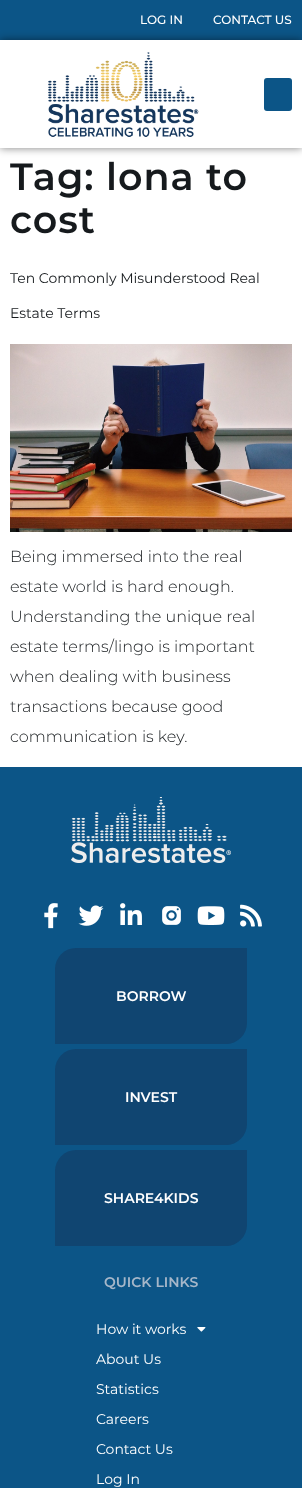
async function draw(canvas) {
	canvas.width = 302;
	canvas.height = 1488;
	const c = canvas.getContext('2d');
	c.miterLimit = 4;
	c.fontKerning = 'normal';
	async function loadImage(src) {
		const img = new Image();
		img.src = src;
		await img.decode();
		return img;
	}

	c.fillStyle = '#fff';
	c.fillRect(0, 0, 302, 1488);
	c.fillStyle = '#0c5587';
	c.fillRect(0, 0, 302, 40);
	c.font = '500 12px Montserrat';
	c.fillStyle = '#fff';
	c.fillText('LOG IN', 140, 24);
	c.fillText('CONTACT US', 213, 24);
	c.save();
	c.beginPath();
	c.moveTo(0, 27);
	c.lineTo(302, 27);
	c.lineTo(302, 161);
	c.lineTo(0, 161);
	c.closePath();
	c.moveTo(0, 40);
	c.lineTo(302, 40);
	c.lineTo(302, 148);
	c.lineTo(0, 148);
	c.closePath();
	c.clip('evenodd');
	c.fillStyle = '#00000080';
	c.filter = 'blur(4px)';
	c.beginPath();
	c.rect(0, 40, 302, 108);
	c.fill();
	c.filter = 'none';
	c.restore();
	c.drawImage(await loadImage('img1.png'), 48, 52, 151, 85);
	c.fillStyle = '#0c5587';
	c.beginPath();
	c.roundRect(264, 78, 28, 33, 3);
	c.fill();
	c.letterSpacing = '1px';
	c.font = '600 38px Montserrat';
	c.fillStyle = '#161a1d';
	c.fillText('Tag: lona to', 10, 190);
	c.fillText('cost', 10, 233);
	c.letterSpacing = '0px';
	c.font = '14px Montserrat';
	c.fillText('Ten Commonly Misunderstood Real', 10, 283);
	c.fillText('Estate Terms', 10, 318);
	c.drawImage(await loadImage('img2.png'), 10, 344, 282, 188);
	c.font = '300 16px Montserrat';
	for (const [text, x, y] of [
		['Being immersed into the real', 10, 562],
		['estate world is hard enough.', 10, 592],
		['Understanding the unique real', 10, 622],
		['estate terms/lingo is important', 10, 652],
		['when dealing with business', 10, 682],
		['transactions because good', 10, 712],
		['communication is key.', 10, 742],
	]) {
		c.fillText(text, x, y);
	}
	c.fillStyle = '#0c5587';
	c.fillRect(0, 767, 302, 721);
	c.drawImage(await loadImage('img3.png'), 71, 797, 160, 66);
	c.drawImage(await loadImage('img4.png'), 44, 903, 14, 26);
	c.drawImage(await loadImage('img5.png'), 78, 905, 26, 21);
	c.drawImage(await loadImage('img6.png'), 120, 903, 22, 22);
	c.drawImage(await loadImage('img7.png'), 162, 906, 19, 19);
	c.drawImage(await loadImage('img8.png'), 197, 906, 28, 19);
	c.drawImage(await loadImage('img9.png'), 240, 904, 22, 23);
	c.fillStyle = '#104571';
	c.beginPath();
	c.roundRect(55, 948, 192, 96, [21, 0, 21, 0]);
	c.fill();
	c.font = '600 14px Montserrat';
	c.fillStyle = '#fff';
	c.fillText('BORROW', 116, 1001);
	c.fillStyle = '#104571';
	c.beginPath();
	c.roundRect(55, 1049, 192, 96, [21, 0, 21, 0]);
	c.fill();
	c.fillStyle = '#fff';
	c.fillText('INVEST', 125, 1102);
	c.fillStyle = '#104571';
	c.beginPath();
	c.roundRect(55, 1150, 192, 96, [21, 0, 21, 0]);
	c.fill();
	c.fillStyle = '#fff';
	c.fillText('SHARE4KIDS', 104, 1203);
	c.fillStyle = '#a6b7c9';
	c.fillText('QUICK LINKS', 104, 1287);
	c.font = '14px Montserrat';
	c.fillStyle = '#fff';
	c.fillText('How it works', 96, 1334);
	c.drawImage(await loadImage('img10.png'), 197, 1327, 9, 5);
	for (const [text, x, y] of [
		['About Us', 96, 1364],
		['Statistics', 96, 1394],
		['Careers', 96, 1424],
		['Contact Us', 96, 1454],
		['Log In', 96, 1484],
	]) {
		c.fillText(text, x, y);
	}
}

draw(document.querySelector('canvas'));
